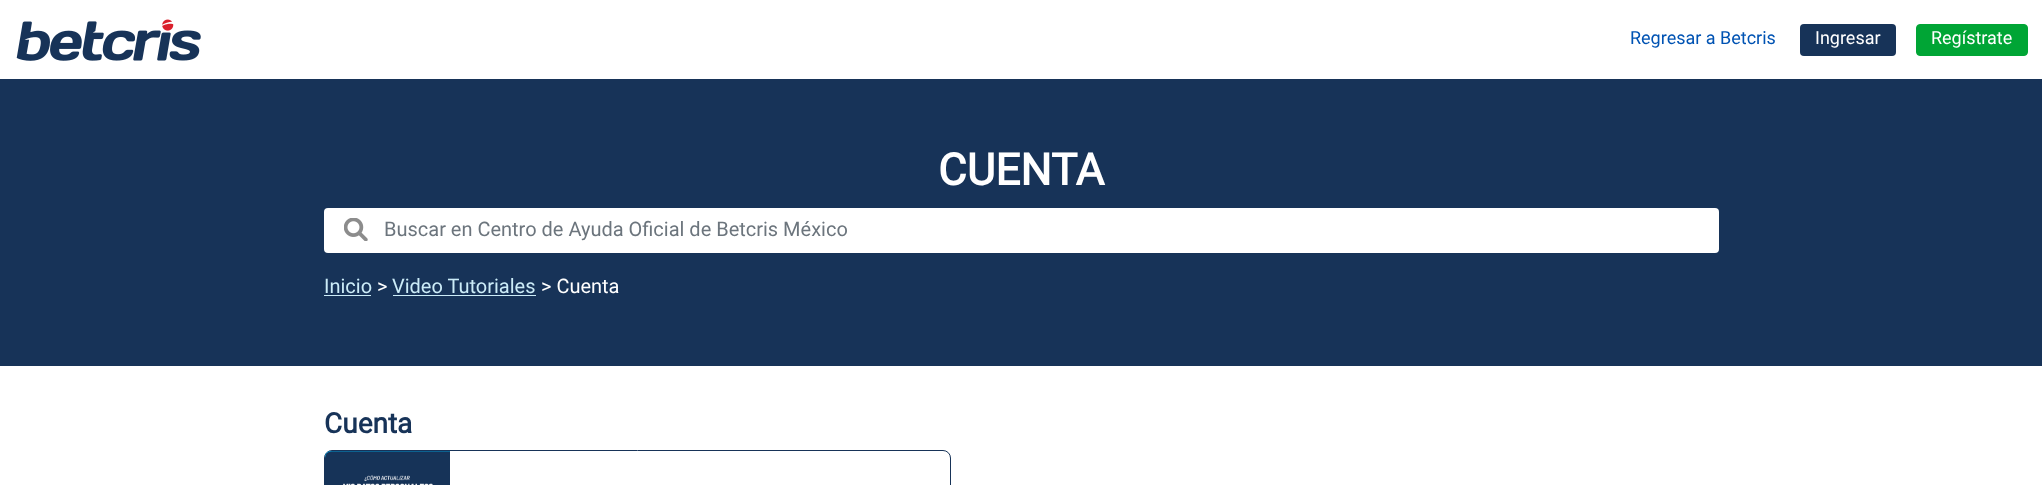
async function draw(canvas) {
	canvas.width = 2042;
	canvas.height = 485;
	const c = canvas.getContext('2d');
	c.miterLimit = 4;
	c.fontKerning = 'normal';
	async function loadImage(src) {
		const img = new Image();
		img.src = src;
		await img.decode();
		return img;
	}

	c.fillStyle = '#fff';
	c.fillRect(0, 0, 2042, 485);
	c.drawImage(await loadImage('img1.png'), 16, 19, 185, 42);
	c.font = '18px Roboto';
	c.fillStyle = '#0053b3';
	c.fillText('Regresar a Betcris', 1630, 44);
	c.fillStyle = '#173358';
	c.beginPath();
	c.roundRect(1800, 24, 96, 32, 4);
	c.fill();
	c.fillStyle = '#fff';
	c.fillText('Ingresar', 1815, 44);
	c.fillStyle = '#00a535';
	c.beginPath();
	c.roundRect(1916.5, 24.5, 111, 31, 3.5);
	c.fill();
	c.strokeStyle = '#00a535';
	c.stroke();
	c.fillStyle = '#fff';
	c.fillText('Regístrate', 1931, 44);
	c.fillStyle = '#173358';
	c.fillRect(0, 79, 2042, 287);
	c.font = 'bold 44px Roboto';
	c.fillStyle = '#fff';
	c.fillText('CUENTA', 938, 185);
	c.beginPath();
	c.roundRect(324, 208, 1395, 45, 4);
	c.fill();
	c.drawImage(await loadImage('img2.png'), 344, 218, 24, 23);
	c.font = '20px Roboto';
	c.fillStyle = '#6c757d';
	c.fillText('Buscar en Centro de Ayuda Oficial de Betcris México', 384, 236);
	c.fillStyle = '#ccecf8';
	c.fillText('Inicio', 324, 293);
	c.fillRect(324, 295, 47, 1);
	c.fillStyle = '#fff';
	c.fillText('>', 377, 293);
	c.fillStyle = '#ccecf8';
	c.fillText('Video Tutoriales', 392, 293);
	c.fillRect(393, 295, 143, 1);
	c.fillStyle = '#fff';
	c.fillText('> Cuenta', 541, 293);
	c.font = 'bold 28px Roboto';
	c.fillStyle = '#173358';
	c.fillText('Cuenta', 324, 433);
	c.beginPath();
	c.roundRect(324.5, 450.5, 626, 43, 7.5);
	c.strokeStyle = '#173358';
	c.stroke();
	c.fillStyle = '#009fda';
	c.beginPath();
	c.moveTo(331, 451);
	c.lineTo(450, 451);
	c.lineTo(450, 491);
	c.lineTo(331, 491);
	c.bezierCurveTo(327.5, 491, 325, 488.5, 325, 485);
	c.lineTo(325, 457);
	c.bezierCurveTo(325, 453.5, 327.5, 451, 331, 451);
	c.closePath();
	c.fill();
	c.drawImage(await loadImage('img3.png'), 325, 451, 125, 34);
}

draw(document.querySelector('canvas'));
